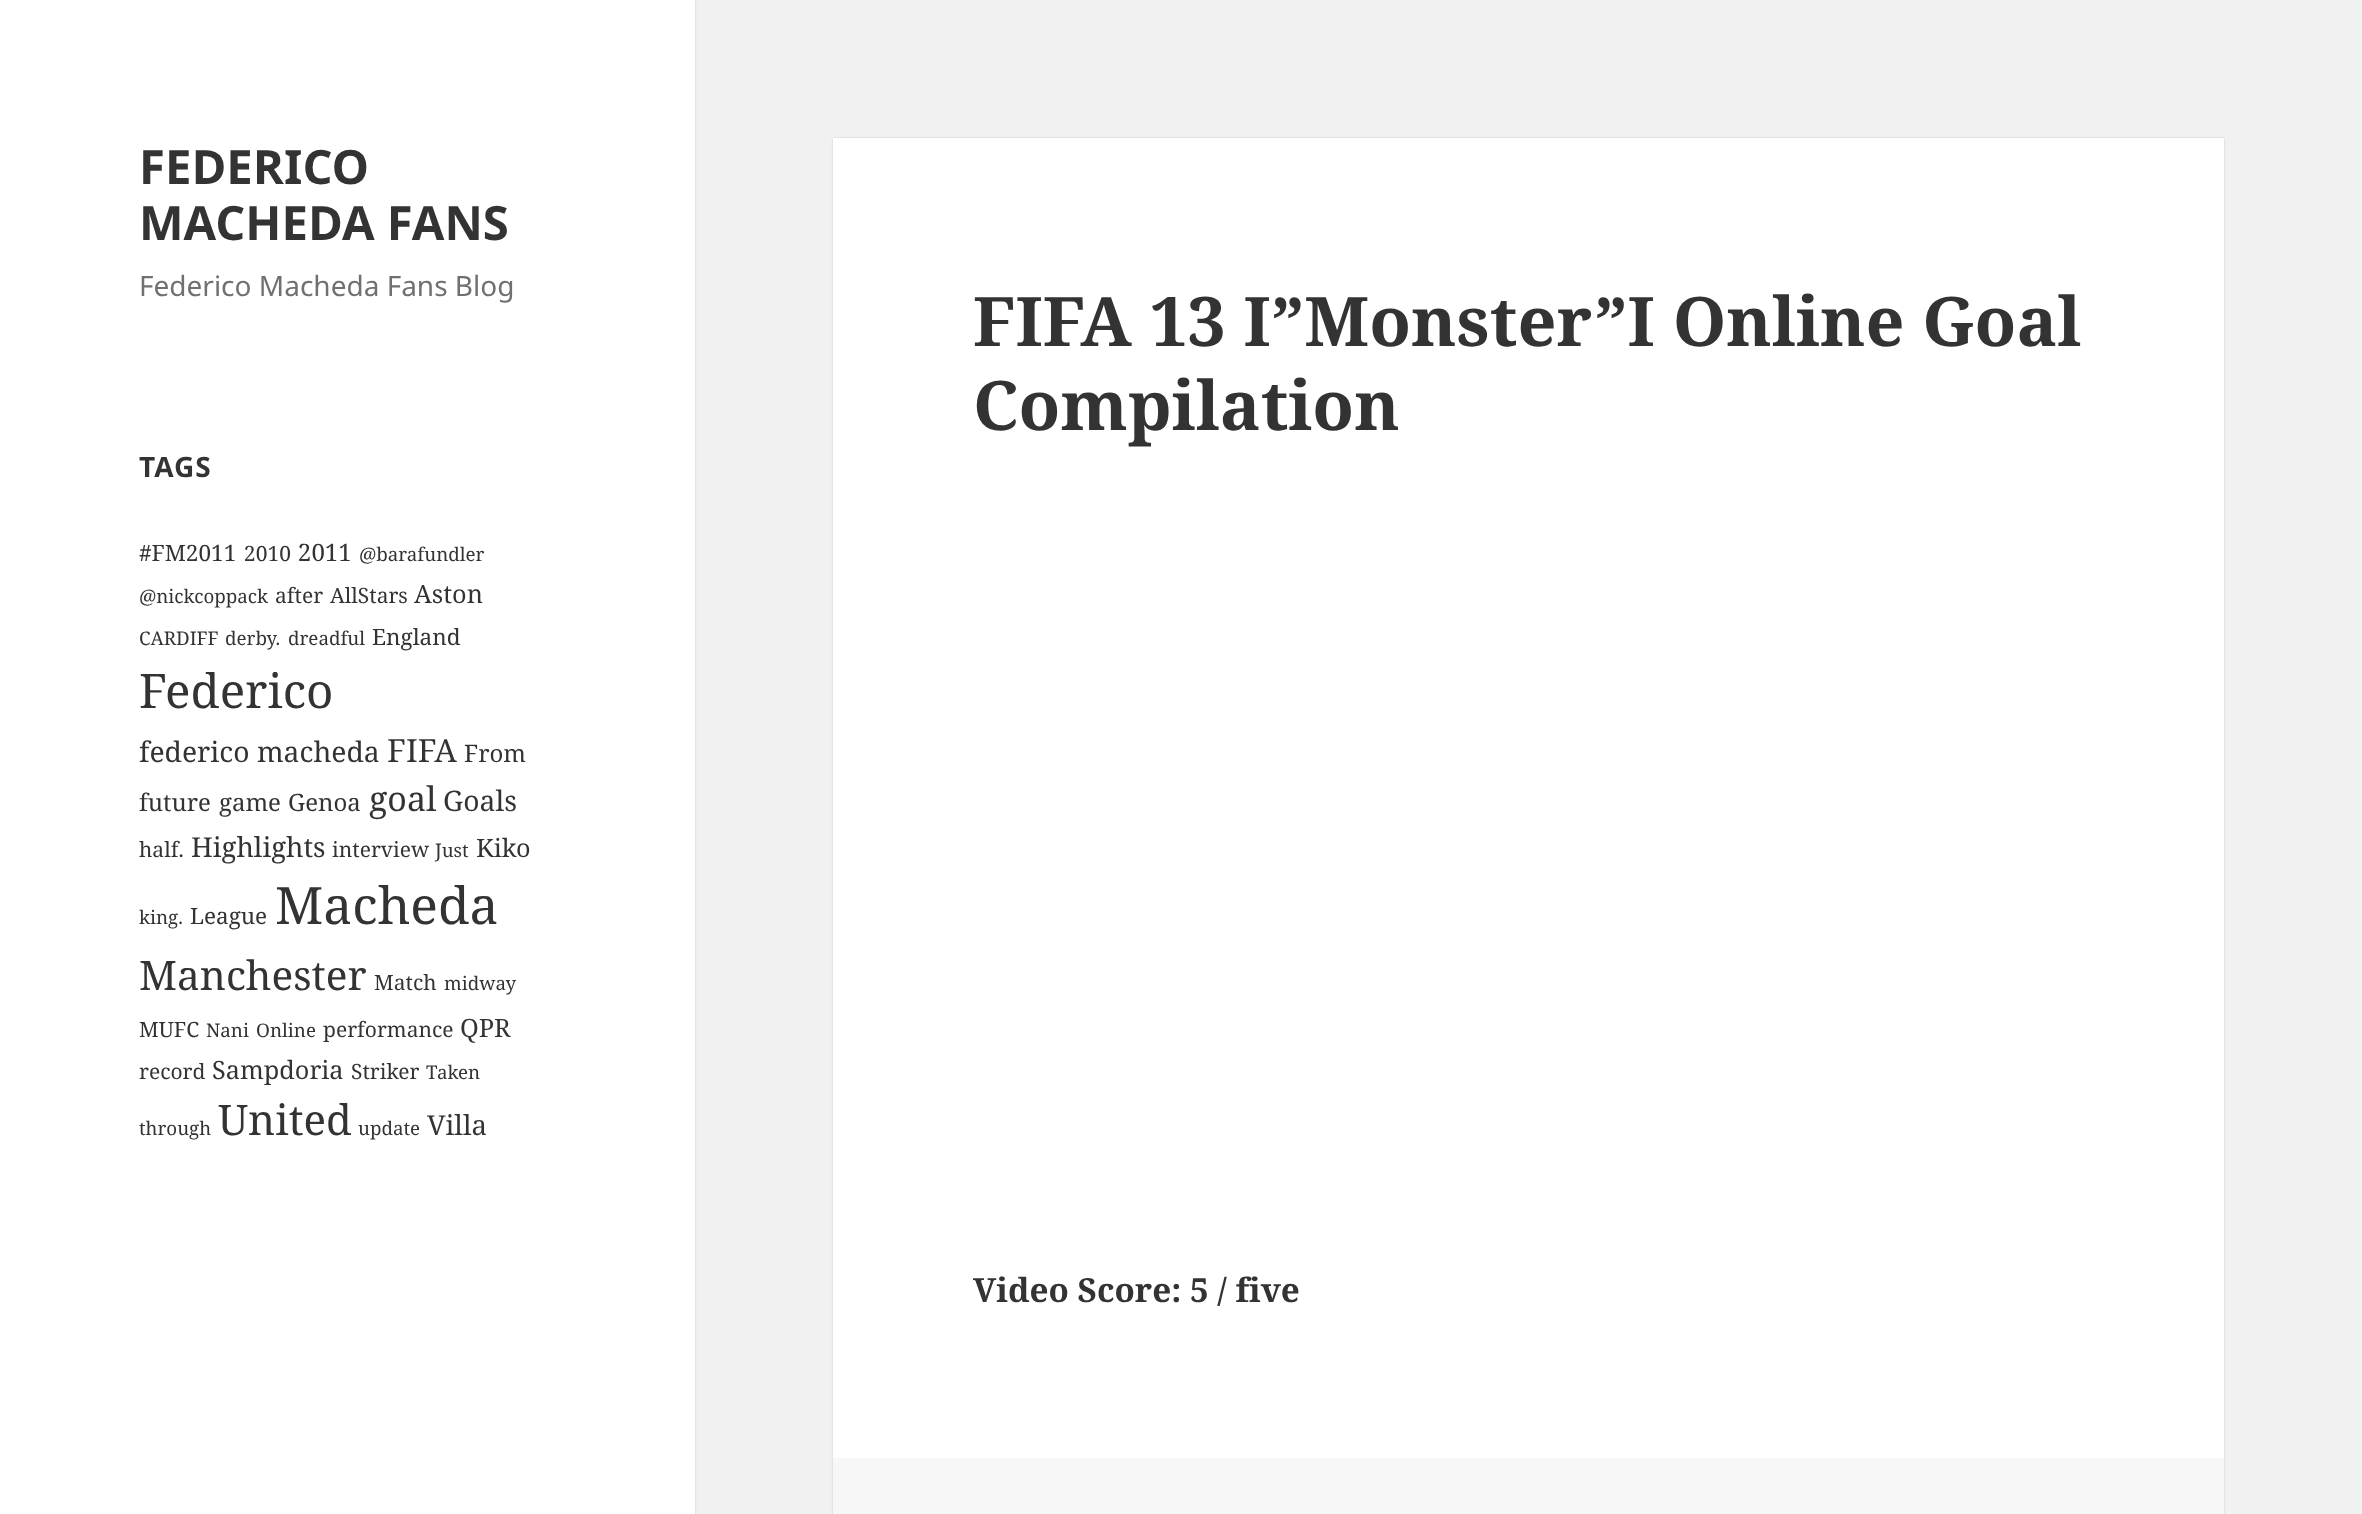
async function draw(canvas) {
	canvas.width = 2362;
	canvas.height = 1514;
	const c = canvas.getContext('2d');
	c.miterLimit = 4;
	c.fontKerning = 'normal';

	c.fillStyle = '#f1f1f1';
	c.fillRect(0, 0, 2362, 1514);
	c.fillStyle = '#00000026';
	c.filter = 'blur(1px)';
	c.beginPath();
	c.rect(0, 0, 695, 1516);
	c.fill();
	c.filter = 'none';
	c.fillStyle = '#fff';
	c.fillRect(0, 0, 695, 1514);
	c.font = 'bold 47.25px Noto Sans';
	c.fillStyle = '#333';
	c.fillText('FEDERICO', 139, 184);
	c.fillText('MACHEDA FANS', 139, 240);
	c.font = '28px Noto Sans';
	c.fillStyle = '#707070';
	c.fillText('Federico Macheda Fans Blog', 139, 296);
	c.letterSpacing = '1px';
	c.font = 'bold 28px Noto Sans';
	c.fillStyle = '#333';
	c.fillText('TAGS', 139, 477);
	c.letterSpacing = '0px';
	c.font = '22.5px Noto Serif';
	c.fillText('#FM2011', 139, 561);
	c.font = '21px Noto Serif';
	c.fillText('2010', 244, 561);
	c.font = '24px Noto Serif';
	c.fillText('2011', 298, 561);
	c.font = '18.75px Noto Serif';
	c.fillText('@barafundler', 359, 561);
	c.fillText('@nickcoppack', 139, 603);
	c.font = '21px Noto Serif';
	c.fillText('after', 275, 603);
	c.fillText('AllStars', 330, 603);
	c.font = '25.25px Noto Serif';
	c.fillText('Aston', 414, 603);
	c.font = '18.75px Noto Serif';
	for (const [text, x, y] of [
		['CARDIFF', 139, 645],
		['derby.', 225, 645],
		['dreadful', 288, 645],
	]) {
		c.fillText(text, x, y);
	}
	c.font = '22.5px Noto Serif';
	c.fillText('England', 372, 645);
	c.font = '47.5px Noto Serif';
	c.fillText('Federico', 139, 708);
	c.font = '28.25px Noto Serif';
	c.fillText('federico macheda', 139, 762);
	c.font = '32px Noto Serif';
	c.fillText('FIFA', 387, 762);
	c.font = '24px Noto Serif';
	for (const [text, x, y] of [
		['From', 464, 762],
		['future', 139, 811],
		['game', 219, 811],
		['Genoa', 288, 811],
	]) {
		c.fillText(text, x, y);
	}
	c.font = '34px Noto Serif';
	c.fillText('goal', 369, 811);
	c.font = '28.25px Noto Serif';
	c.fillText('Goals', 443, 811);
	c.font = '21px Noto Serif';
	c.fillText('half.', 139, 857);
	c.font = '27.5px Noto Serif';
	c.fillText('Highlights', 191, 857);
	c.font = '21px Noto Serif';
	c.fillText('interview', 332, 857);
	c.font = '18.75px Noto Serif';
	c.fillText('Just', 435, 857);
	c.font = '25.25px Noto Serif';
	c.fillText('Kiko', 476, 857);
	c.font = '18.75px Noto Serif';
	c.fillText('king.', 139, 924);
	c.font = '22.5px Noto Serif';
	c.fillText('League', 190, 924);
	c.font = '51.5px Noto Serif';
	c.fillText('Macheda', 275, 924);
	c.font = '40.5px Noto Serif';
	c.fillText('Manchester', 139, 990);
	c.font = '21px Noto Serif';
	c.fillText('Match', 374, 990);
	c.font = '18.75px Noto Serif';
	c.fillText('midway', 444, 990);
	c.font = '21px Noto Serif';
	c.fillText('MUFC', 139, 1037);
	c.font = '18.75px Noto Serif';
	c.fillText('Nani', 206, 1037);
	c.fillText('Online', 256, 1037);
	c.font = '21px Noto Serif';
	c.fillText('performance', 323, 1037);
	c.font = '25.25px Noto Serif';
	c.fillText('QPR', 460, 1037);
	c.font = '21px Noto Serif';
	c.fillText('record', 139, 1079);
	c.font = '25.25px Noto Serif';
	c.fillText('Sampdoria', 212, 1079);
	c.font = '21px Noto Serif';
	c.fillText('Striker', 351, 1079);
	c.font = '18.75px Noto Serif';
	c.fillText('Taken', 426, 1079);
	c.fillText('through', 139, 1135);
	c.font = '42px Noto Serif';
	c.fillText('United', 218, 1135);
	c.font = '18.75px Noto Serif';
	c.fillText('update', 358, 1135);
	c.font = '27.5px Noto Serif';
	c.fillText('Villa', 427, 1135);
	c.fillStyle = '#00000026';
	c.filter = 'blur(1px)';
	c.beginPath();
	c.rect(833, 138, 1391, 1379);
	c.fill();
	c.filter = 'none';
	c.fillStyle = '#fff';
	c.fillRect(833, 138, 1391, 1320);
	c.font = 'bold 68.25px Noto Serif';
	c.fillStyle = '#333';
	c.fillText('FIFA 13 I”Monster”I Online Goal', 973, 346);
	c.fillText('Compilation', 973, 430);
	c.font = 'bold 33.25px Noto Serif';
	c.fillText('Video Score: 5 / five', 973, 1302);
	c.fillStyle = '#f7f7f7';
	c.fillRect(833, 1458, 1391, 56);
}

draw(document.querySelector('canvas'));
